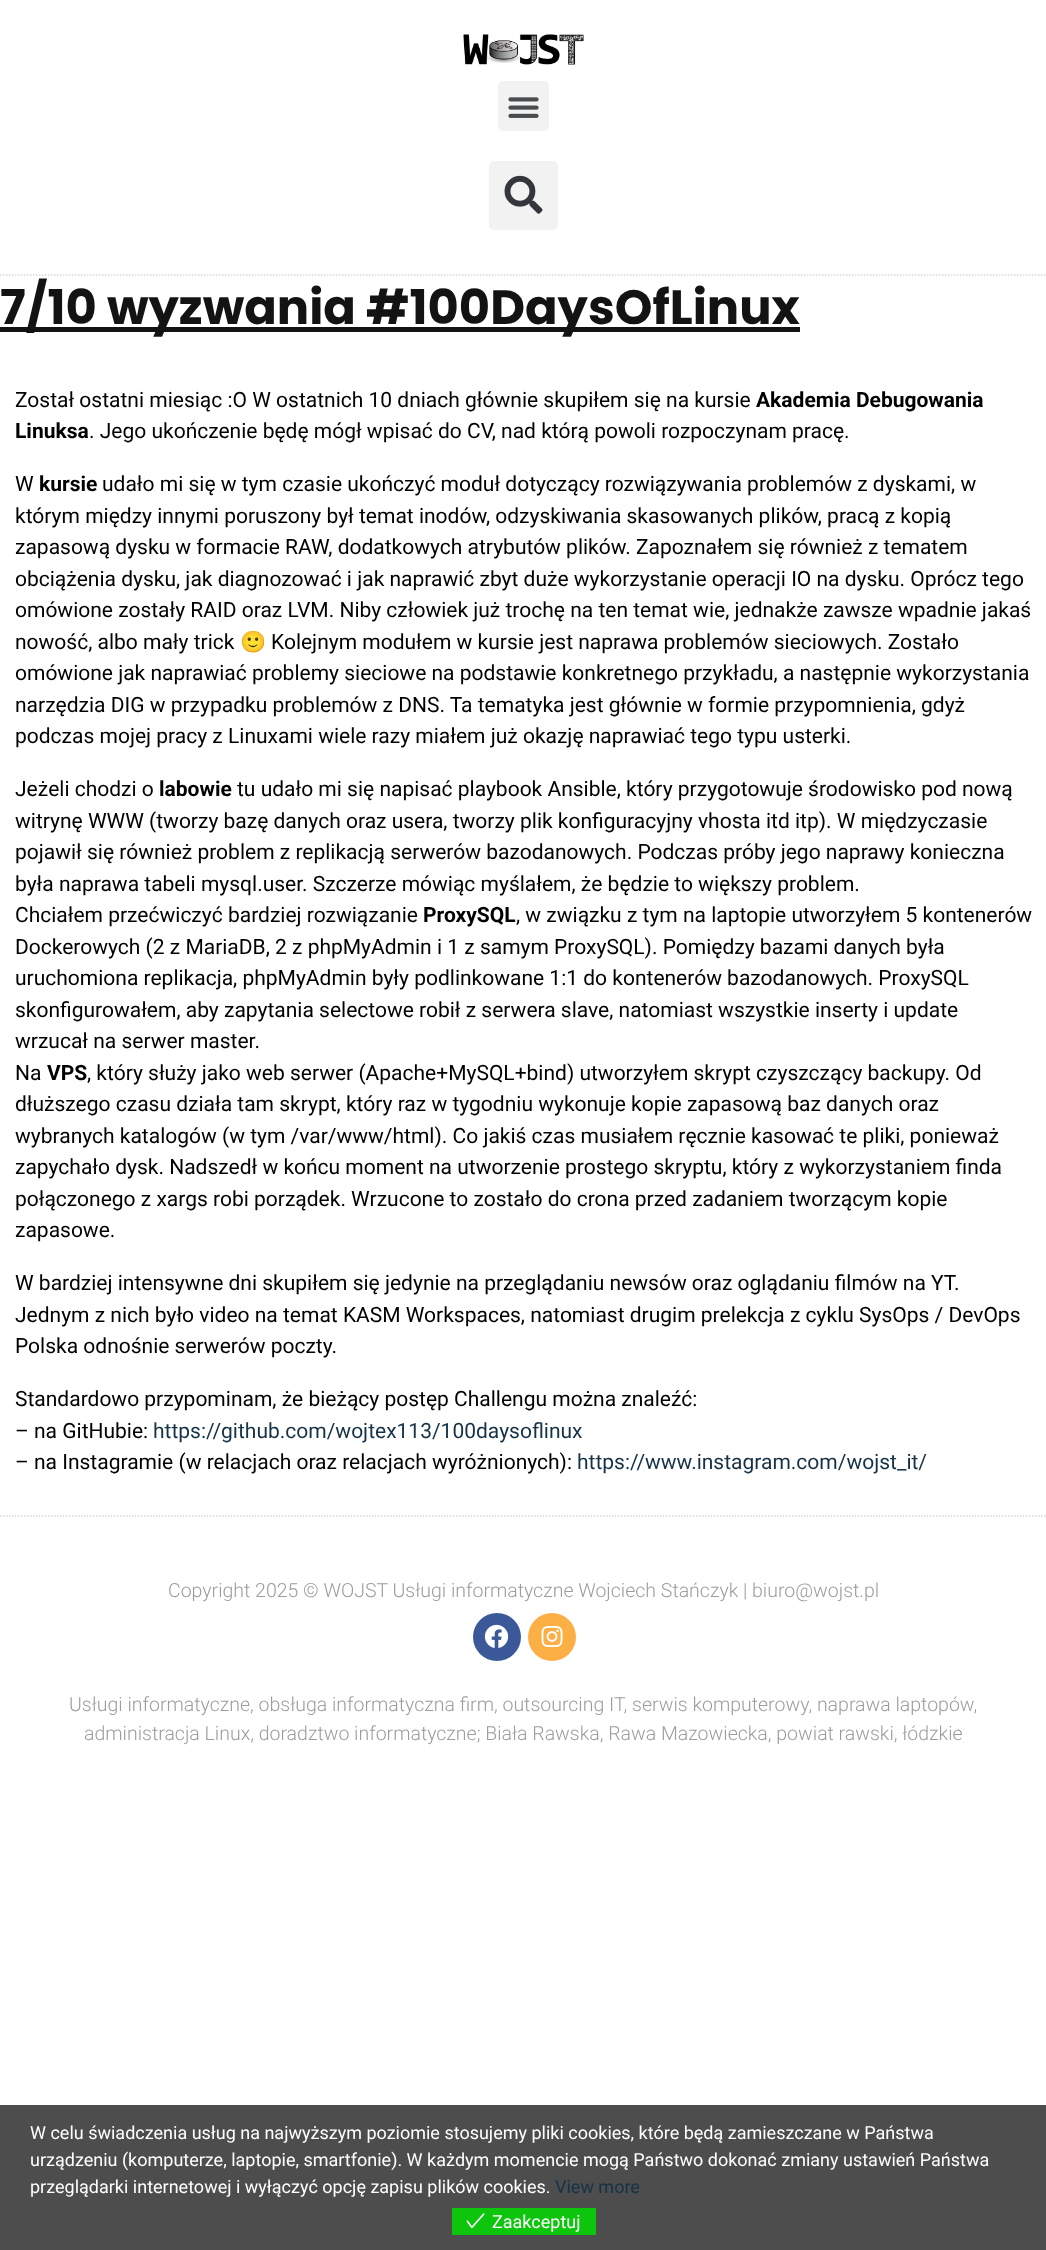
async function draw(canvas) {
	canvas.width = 1046;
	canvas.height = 2250;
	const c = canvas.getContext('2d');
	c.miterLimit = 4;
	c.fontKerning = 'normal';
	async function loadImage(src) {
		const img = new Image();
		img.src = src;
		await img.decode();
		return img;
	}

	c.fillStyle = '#fff';
	c.fillRect(0, 0, 1046, 2250);
	c.beginPath();
	c.moveTo(0, 275);
	c.lineTo(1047, 275);
	c.strokeStyle = '#d6d6d6';
	c.lineWidth = 1.5;
	c.setLineDash([1.5, 1.5]);
	c.stroke();
	c.drawImage(await loadImage('img1.png'), 463, 34, 121, 31);
	c.fillStyle = '#f2f2f2';
	c.beginPath();
	c.roundRect(498, 81, 51, 50, 5);
	c.fill();
	c.drawImage(await loadImage('img2.png'), 508, 97, 31, 21);
	c.beginPath();
	c.roundRect(489, 161, 69, 69, 5);
	c.fill();
	c.drawImage(await loadImage('img3.png'), 504, 175, 39, 39);
	c.fillStyle = '#141313';
	c.fillRect(0, 327, 800, 5);
	c.font = 'bold 48px Poppins';
	c.fillText('7/10 wyzwania #100DaysOfLinux', 0, 324);
	c.font = '21px Roboto';
	c.fillStyle = '#000';
	c.fillText('Został ostatni miesiąc :O W ostatnich 10 dniach głównie skupiłem się na kursie', 15, 407);
	c.font = 'bold 21px Roboto';
	c.fillText('Akademia Debugowania', 756, 407);
	c.fillText('Linuksa', 15, 438);
	c.font = '21px Roboto';
	c.fillText('. Jego ukończenie będę mógł wpisać do CV, nad którą powoli rozpoczynam pracę.', 89, 438);
	c.fillText('W', 15, 491);
	c.font = 'bold 21px Roboto';
	c.fillText('kursie', 39, 491);
	c.font = '21px Roboto';
	for (const [text, x, y] of [
		['udało mi się w tym czasie ukończyć moduł dotyczący rozwiązywania problemów z dyskami, w', 102, 491],
		['którym między innymi poruszony był temat inodów, odzyskiwania skasowanych plików, pracą z kopią', 15, 523],
		['zapasową dysku w formacie RAW, dodatkowych atrybutów plików. Zapoznałem się również z tematem', 15, 554],
		['obciążenia dysku, jak diagnozować i jak naprawić zbyt duże wykorzystanie operacji IO na dysku. Oprócz tego', 15, 586],
		['omówione zostały RAID oraz LVM. Niby człowiek już trochę na ten temat wie, jednakże zawsze wpadnie jakaś', 15, 617],
		['nowość, albo mały trick', 15, 649],
	]) {
		c.fillText(text, x, y);
	}
	c.font = '21px Noto Color Emoji';
	c.fillText('🙂', 240, 649);
	c.font = '21px Roboto';
	for (const [text, x, y] of [
		['Kolejnym modułem w kursie jest naprawa problemów sieciowych. Zostało', 271, 649],
		['omówione jak naprawiać problemy sieciowe na podstawie konkretnego przykładu, a następnie wykorzystania', 15, 680],
		['narzędzia DIG w przypadku problemów z DNS. Ta tematyka jest głównie w formie przypomnienia, gdyż', 15, 712],
		['podczas mojej pracy z Linuxami wiele razy miałem już okazję naprawiać tego typu usterki.', 15, 743],
		['Jeżeli chodzi o', 15, 796],
	]) {
		c.fillText(text, x, y);
	}
	c.font = 'bold 21px Roboto';
	c.fillText('labowie', 159, 796);
	c.font = '21px Roboto';
	for (const [text, x, y] of [
		['tu udało mi się napisać playbook Ansible, który przygotowuje środowisko pod nową', 237, 796],
		['witrynę WWW (tworzy bazę danych oraz usera, tworzy plik konfiguracyjny vhosta itd itp). W międzyczasie', 15, 828],
		['pojawił się również problem z replikacją serwerów bazodanowych. Podczas próby jego naprawy konieczna', 15, 859],
		['była naprawa tabeli mysql.user. Szczerze mówiąc myślałem, że będzie to większy problem.', 15, 891],
		['Chciałem przećwiczyć bardziej rozwiązanie', 15, 922],
	]) {
		c.fillText(text, x, y);
	}
	c.font = 'bold 21px Roboto';
	c.fillText('ProxySQL', 423, 922);
	c.font = '21px Roboto';
	for (const [text, x, y] of [
		[', w związku z tym na laptopie utworzyłem 5 kontenerów', 516, 922],
		['Dockerowych (2 z MariaDB, 2 z phpMyAdmin i 1 z samym ProxySQL). Pomiędzy bazami danych była', 15, 954],
		['uruchomiona replikacja, phpMyAdmin były podlinkowane 1:1 do kontenerów bazodanowych. ProxySQL', 15, 985],
		['skonfigurowałem, aby zapytania selectowe robił z serwera slave, natomiast wszystkie inserty i update', 15, 1017],
		['wrzucał na serwer master.', 15, 1048],
		['Na', 15, 1080],
	]) {
		c.fillText(text, x, y);
	}
	c.font = 'bold 21px Roboto';
	c.fillText('VPS', 47, 1080);
	c.font = '21px Roboto';
	for (const [text, x, y] of [
		[', który służy jako web serwer (Apache+MySQL+bind) utworzyłem skrypt czyszczący backupy. Od', 87, 1080],
		['dłuższego czasu działa tam skrypt, który raz w tygodniu wykonuje kopie zapasową baz danych oraz', 15, 1111],
		['wybranych katalogów (w tym /var/www/html). Co jakiś czas musiałem ręcznie kasować te pliki, ponieważ', 15, 1143],
		['zapychało dysk. Nadszedł w końcu moment na utworzenie prostego skryptu, który z wykorzystaniem finda', 15, 1174],
		['połączonego z xargs robi porządek. Wrzucone to zostało do crona przed zadaniem tworzącym kopie', 15, 1206],
		['zapasowe.', 15, 1237],
		['W bardziej intensywne dni skupiłem się jedynie na przeglądaniu newsów oraz oglądaniu filmów na YT.', 15, 1290],
		['Jednym z nich było video na temat KASM Workspaces, natomiast drugim prelekcja z cyklu SysOps / DevOps', 15, 1322],
		['Polska odnośnie serwerów poczty.', 15, 1353],
		['Standardowo przypominam, że bieżący postęp Challengu można znaleźć:', 15, 1406],
		['– na GitHubie:', 15, 1438],
	]) {
		c.fillText(text, x, y);
	}
	c.fillStyle = '#163247';
	c.fillText('https://github.com/wojtex113/100daysoflinux', 153, 1438);
	c.fillStyle = '#000';
	c.fillText('– na Instagramie (w relacjach oraz relacjach wyróżnionych):', 15, 1469);
	c.fillStyle = '#163247';
	c.fillText('https://www.instagram.com/wojst_it/', 577, 1469);
	c.beginPath();
	c.moveTo(0, 1516);
	c.lineTo(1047, 1516);
	c.stroke();
	c.font = '300 19.5px Roboto';
	c.fillStyle = '#9c9c9c';
	c.fillText('Copyright 2025 © WOJST Usługi informatyczne Wojciech Stańczyk | biuro@wojst.pl', 168, 1597);
	c.fillStyle = '#3b5998';
	c.beginPath();
	c.arc(497, 1637, 24, 0, 2 * Math.PI);
	c.fill();
	c.drawImage(await loadImage('img4.png'), 484, 1624, 25, 24);
	c.fillStyle = '#fcaf45';
	c.beginPath();
	c.arc(552, 1637, 24, 0, 2 * Math.PI);
	c.fill();
	c.drawImage(await loadImage('img5.png'), 541, 1625, 22, 22);
	c.fillStyle = '#9c9c9c';
	c.fillText('Usługi informatyczne, obsługa informatyczna firm, outsourcing IT, serwis komputerowy, naprawa laptopów,', 69, 1711);
	c.fillText('administracja Linux, doradztwo informatyczne; Biała Rawska, Rawa Mazowiecka, powiat rawski, łódzkie', 84, 1740);
	c.fillStyle = '#4d4d4d';
	c.fillRect(0, 2105, 1046, 145);
	c.font = '18px Roboto';
	c.fillStyle = '#fff';
	for (const [text, x, y] of [
		['W celu świadczenia usług na najwyższym poziomie stosujemy pliki cookies, które będą zamieszczane w Państwa', 30, 2139],
		['urządzeniu (komputerze, laptopie, smartfonie). W każdym momencie mogą Państwo dokonać zmiany ustawień Państwa', 30, 2166],
		['przeglądarki internetowej i wyłączyć opcję zapisu plików cookies.', 30, 2193],
	]) {
		c.fillText(text, x, y);
	}
	c.fillStyle = '#163247';
	c.fillText('View more', 555, 2193);
	c.fillStyle = '#0ec50e';
	c.fillRect(452, 2208, 144, 27);
	c.drawImage(await loadImage('img6.png'), 466, 2213, 19, 16);
	c.fillStyle = '#fff';
	c.fillText('Zaakceptuj', 492, 2228);
}

draw(document.querySelector('canvas'));
